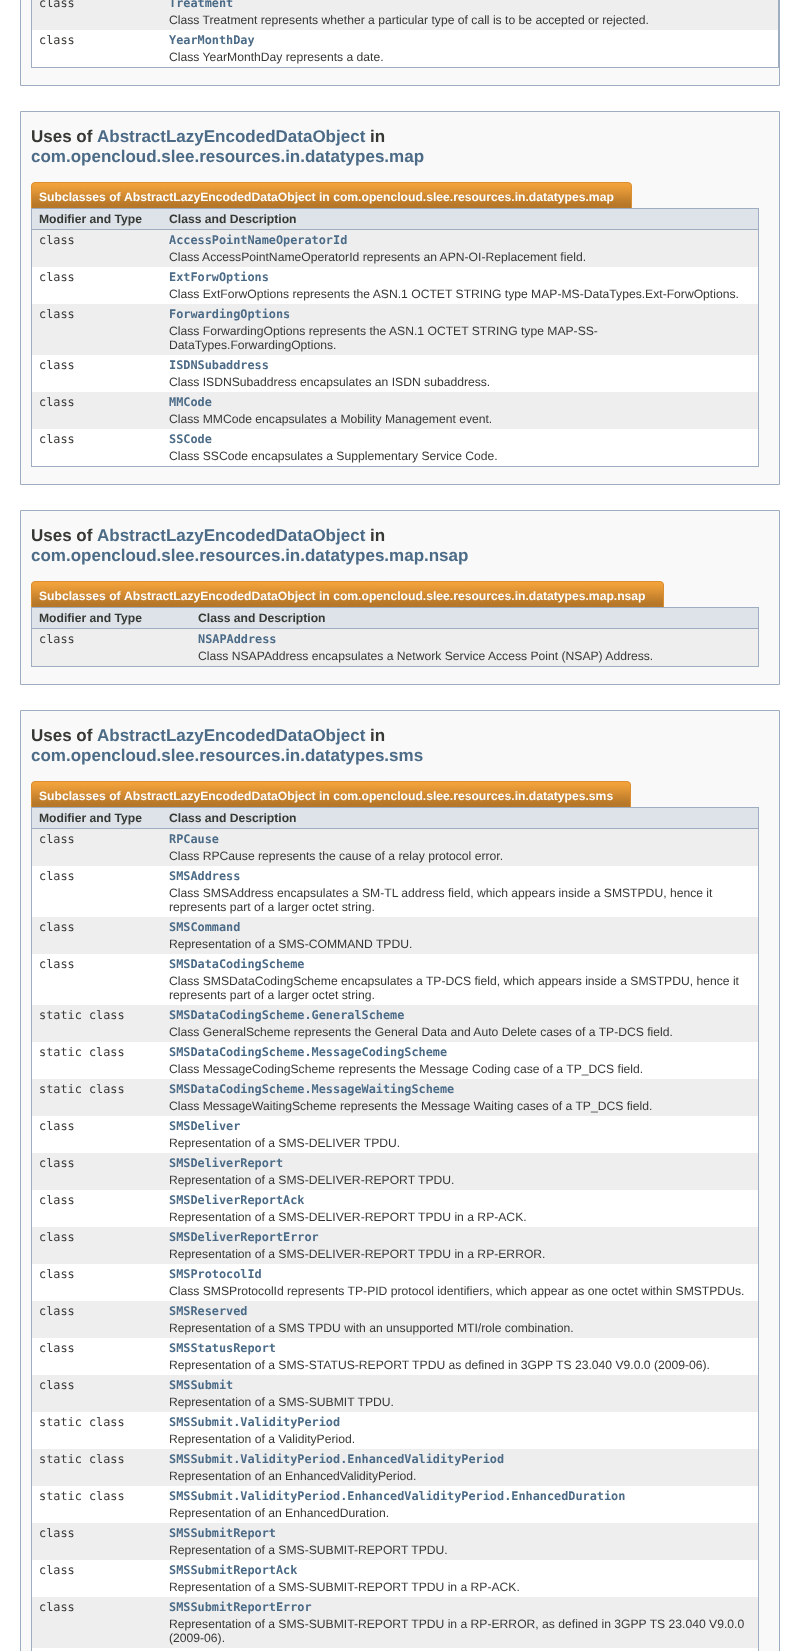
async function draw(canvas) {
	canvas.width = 800;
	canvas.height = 1651;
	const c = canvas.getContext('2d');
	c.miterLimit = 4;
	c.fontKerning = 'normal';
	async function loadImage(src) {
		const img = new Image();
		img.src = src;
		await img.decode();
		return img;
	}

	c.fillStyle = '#fff';
	c.fillRect(0, 0, 800, 1651);
	c.fillStyle = '#f9f9f9';
	c.beginPath();
	c.rect(20.5, -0.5, 759, 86);
	c.fill();
	c.strokeStyle = '#9eadc0';
	c.stroke();
	for (const [x, y, w, h, color] of [
		[31, 67, 748, 1, '#9eadc0'],
		[32, 0, 746, 30, '#eeeeef'],
		[31, 0, 1, 67, '#9eadc0'],
	]) {
		c.fillStyle = color;
		c.fillRect(x, y, w, h);
	}
	c.font = '11.85px DejaVu Sans Mono';
	c.fillStyle = '#353833';
	c.fillText('class', 39, 7);
	c.fillStyle = '#9eadc0';
	c.fillRect(778, 0, 1, 67);
	c.font = 'bold 11.85px DejaVu Sans Mono';
	c.fillStyle = '#4c6b87';
	c.fillText('Treatment', 169, 7);
	c.font = '12.15px Liberation Sans';
	c.fillStyle = '#353833';
	c.fillText('Class Treatment represents whether a particular type of call is to be accepted or rejected.', 169, 24);
	c.fillStyle = '#fff';
	c.fillRect(32, 30, 746, 37);
	c.font = '11.85px DejaVu Sans Mono';
	c.fillStyle = '#353833';
	c.fillText('class', 39, 44);
	c.font = 'bold 11.85px DejaVu Sans Mono';
	c.fillStyle = '#4c6b87';
	c.fillText('YearMonthDay', 169, 44);
	c.font = '12.15px Liberation Sans';
	c.fillStyle = '#353833';
	c.fillText('Class YearMonthDay represents a date.', 169, 61);
	c.fillStyle = '#f9f9f9';
	c.beginPath();
	c.rect(20.5, 111.5, 759, 373);
	c.fill();
	c.stroke();
	c.font = 'bold 17px Liberation Sans';
	c.fillStyle = '#353833';
	c.fillText('Uses of', 31, 142);
	c.fillStyle = '#4c6b87';
	c.fillText('AbstractLazyEncodedDataObject', 97, 142);
	c.fillStyle = '#353833';
	c.fillText('in', 370, 142);
	c.fillStyle = '#4c6b87';
	c.fillText('com.opencloud.slee.resources.in.datatypes.map', 31, 162);
	c.fillStyle = '#9eadc0';
	c.fillRect(31, 466, 728, 1);
	c.drawImage(await loadImage('img1.png'), 31, 182, 583, 26);
	c.font = 'bold 12.15px Liberation Sans';
	c.fillStyle = '#fff';
	c.fillText('Subclasses of', 39, 201);
	c.fillText('AbstractLazyEncodedDataObject in com.opencloud.slee.resources.in.datatypes.map', 124, 201);
	c.drawImage(await loadImage('img2.png'), 614, 182, 18, 26);
	for (const [x, y, w, h, color] of [
		[32, 209, 726, 20, '#dee3e9'],
		[31, 208, 728, 1, '#9eadc0'],
		[31, 229, 131, 1, '#9eadc0'],
		[31, 208, 1, 258, '#9eadc0'],
	]) {
		c.fillStyle = color;
		c.fillRect(x, y, w, h);
	}
	c.fillStyle = '#353833';
	c.fillText('Modifier and Type', 39, 223);
	c.fillStyle = '#9eadc0';
	c.fillRect(758, 208, 1, 258);
	c.fillRect(162, 229, 597, 1);
	c.fillStyle = '#353833';
	c.fillText('Class and Description', 169, 223);
	c.fillStyle = '#eeeeef';
	c.fillRect(32, 230, 726, 37);
	c.font = '11.85px DejaVu Sans Mono';
	c.fillStyle = '#353833';
	c.fillText('class', 39, 244);
	c.font = 'bold 11.85px DejaVu Sans Mono';
	c.fillStyle = '#4c6b87';
	c.fillText('AccessPointNameOperatorId', 169, 244);
	c.font = '12.15px Liberation Sans';
	c.fillStyle = '#353833';
	c.fillText('Class AccessPointNameOperatorId represents an APN-OI-Replacement field.', 169, 261);
	c.fillStyle = '#fff';
	c.fillRect(32, 267, 726, 37);
	c.font = '11.85px DejaVu Sans Mono';
	c.fillStyle = '#353833';
	c.fillText('class', 39, 281);
	c.font = 'bold 11.85px DejaVu Sans Mono';
	c.fillStyle = '#4c6b87';
	c.fillText('ExtForwOptions', 169, 281);
	c.font = '12.15px Liberation Sans';
	c.fillStyle = '#353833';
	c.fillText('Class ExtForwOptions represents the ASN.1 OCTET STRING type MAP-MS-DataTypes.Ext-ForwOptions.', 169, 298);
	c.fillStyle = '#eeeeef';
	c.fillRect(32, 304, 726, 51);
	c.font = '11.85px DejaVu Sans Mono';
	c.fillStyle = '#353833';
	c.fillText('class', 39, 318);
	c.font = 'bold 11.85px DejaVu Sans Mono';
	c.fillStyle = '#4c6b87';
	c.fillText('ForwardingOptions', 169, 318);
	c.font = '12.15px Liberation Sans';
	c.fillStyle = '#353833';
	c.fillText('Class ForwardingOptions represents the ASN.1 OCTET STRING type MAP-SS-', 169, 335);
	c.fillText('DataTypes.ForwardingOptions.', 169, 349);
	c.fillStyle = '#fff';
	c.fillRect(32, 355, 726, 37);
	c.font = '11.85px DejaVu Sans Mono';
	c.fillStyle = '#353833';
	c.fillText('class', 39, 369);
	c.font = 'bold 11.85px DejaVu Sans Mono';
	c.fillStyle = '#4c6b87';
	c.fillText('ISDNSubaddress', 169, 369);
	c.font = '12.15px Liberation Sans';
	c.fillStyle = '#353833';
	c.fillText('Class ISDNSubaddress encapsulates an ISDN subaddress.', 169, 386);
	c.fillStyle = '#eeeeef';
	c.fillRect(32, 392, 726, 37);
	c.font = '11.85px DejaVu Sans Mono';
	c.fillStyle = '#353833';
	c.fillText('class', 39, 406);
	c.font = 'bold 11.85px DejaVu Sans Mono';
	c.fillStyle = '#4c6b87';
	c.fillText('MMCode', 169, 406);
	c.font = '12.15px Liberation Sans';
	c.fillStyle = '#353833';
	c.fillText('Class MMCode encapsulates a Mobility Management event.', 169, 423);
	c.fillStyle = '#fff';
	c.fillRect(32, 429, 726, 37);
	c.font = '11.85px DejaVu Sans Mono';
	c.fillStyle = '#353833';
	c.fillText('class', 39, 443);
	c.font = 'bold 11.85px DejaVu Sans Mono';
	c.fillStyle = '#4c6b87';
	c.fillText('SSCode', 169, 443);
	c.font = '12.15px Liberation Sans';
	c.fillStyle = '#353833';
	c.fillText('Class SSCode encapsulates a Supplementary Service Code.', 169, 460);
	c.fillStyle = '#f9f9f9';
	c.beginPath();
	c.rect(20.5, 510.5, 759, 174);
	c.fill();
	c.stroke();
	c.font = 'bold 17px Liberation Sans';
	c.fillStyle = '#353833';
	c.fillText('Uses of', 31, 541);
	c.fillStyle = '#4c6b87';
	c.fillText('AbstractLazyEncodedDataObject', 97, 541);
	c.fillStyle = '#353833';
	c.fillText('in', 370, 541);
	c.fillStyle = '#4c6b87';
	c.fillText('com.opencloud.slee.resources.in.datatypes.map.nsap', 31, 561);
	c.fillStyle = '#9eadc0';
	c.fillRect(31, 666, 728, 1);
	c.drawImage(await loadImage('img3.png'), 31, 581, 615, 26);
	c.font = 'bold 12.15px Liberation Sans';
	c.fillStyle = '#fff';
	c.fillText('Subclasses of', 39, 600);
	c.fillText('AbstractLazyEncodedDataObject in com.opencloud.slee.resources.in.datatypes.map.nsap', 124, 600);
	c.drawImage(await loadImage('img2.png'), 646, 581, 18, 26);
	for (const [x, y, w, h, color] of [
		[32, 608, 726, 20, '#dee3e9'],
		[31, 607, 728, 1, '#9eadc0'],
		[31, 628, 160, 1, '#9eadc0'],
		[31, 607, 1, 59, '#9eadc0'],
	]) {
		c.fillStyle = color;
		c.fillRect(x, y, w, h);
	}
	c.fillStyle = '#353833';
	c.fillText('Modifier and Type', 39, 622);
	c.fillStyle = '#9eadc0';
	c.fillRect(758, 607, 1, 59);
	c.fillRect(191, 628, 568, 1);
	c.fillStyle = '#353833';
	c.fillText('Class and Description', 198, 622);
	c.fillStyle = '#eeeeef';
	c.fillRect(32, 629, 726, 37);
	c.font = '11.85px DejaVu Sans Mono';
	c.fillStyle = '#353833';
	c.fillText('class', 39, 643);
	c.font = 'bold 11.85px DejaVu Sans Mono';
	c.fillStyle = '#4c6b87';
	c.fillText('NSAPAddress', 198, 643);
	c.font = '12.15px Liberation Sans';
	c.fillStyle = '#353833';
	c.fillText('Class NSAPAddress encapsulates a Network Service Access Point (NSAP) Address.', 198, 660);
	c.fillStyle = '#f9f9f9';
	c.beginPath();
	c.rect(20.5, 710.5, 759, 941);
	c.fill();
	c.stroke();
	c.font = 'bold 17px Liberation Sans';
	c.fillStyle = '#353833';
	c.fillText('Uses of', 31, 741);
	c.fillStyle = '#4c6b87';
	c.fillText('AbstractLazyEncodedDataObject', 97, 741);
	c.fillStyle = '#353833';
	c.fillText('in', 370, 741);
	c.fillStyle = '#4c6b87';
	c.fillText('com.opencloud.slee.resources.in.datatypes.sms', 31, 761);
	c.drawImage(await loadImage('img4.png'), 31, 781, 582, 26);
	c.font = 'bold 12.15px Liberation Sans';
	c.fillStyle = '#fff';
	c.fillText('Subclasses of', 39, 800);
	c.fillText('AbstractLazyEncodedDataObject in com.opencloud.slee.resources.in.datatypes.sms', 124, 800);
	c.drawImage(await loadImage('img2.png'), 613, 781, 18, 26);
	for (const [x, y, w, h, color] of [
		[32, 808, 726, 20, '#dee3e9'],
		[31, 807, 728, 1, '#9eadc0'],
		[31, 828, 131, 1, '#9eadc0'],
		[31, 807, 1, 841, '#9eadc0'],
	]) {
		c.fillStyle = color;
		c.fillRect(x, y, w, h);
	}
	c.fillStyle = '#353833';
	c.fillText('Modifier and Type', 39, 822);
	c.fillStyle = '#9eadc0';
	c.fillRect(758, 807, 1, 841);
	c.fillRect(162, 828, 597, 1);
	c.fillStyle = '#353833';
	c.fillText('Class and Description', 169, 822);
	c.fillStyle = '#eeeeef';
	c.fillRect(32, 829, 726, 37);
	c.font = '11.85px DejaVu Sans Mono';
	c.fillStyle = '#353833';
	c.fillText('class', 39, 843);
	c.font = 'bold 11.85px DejaVu Sans Mono';
	c.fillStyle = '#4c6b87';
	c.fillText('RPCause', 169, 843);
	c.font = '12.15px Liberation Sans';
	c.fillStyle = '#353833';
	c.fillText('Class RPCause represents the cause of a relay protocol error.', 169, 860);
	c.fillStyle = '#fff';
	c.fillRect(32, 866, 726, 51);
	c.font = '11.85px DejaVu Sans Mono';
	c.fillStyle = '#353833';
	c.fillText('class', 39, 880);
	c.font = 'bold 11.85px DejaVu Sans Mono';
	c.fillStyle = '#4c6b87';
	c.fillText('SMSAddress', 169, 880);
	c.font = '12.15px Liberation Sans';
	c.fillStyle = '#353833';
	c.fillText('Class SMSAddress encapsulates a SM-TL address field, which appears inside a SMSTPDU, hence it', 169, 897);
	c.fillText('represents part of a larger octet string.', 169, 911);
	c.fillStyle = '#eeeeef';
	c.fillRect(32, 917, 726, 37);
	c.font = '11.85px DejaVu Sans Mono';
	c.fillStyle = '#353833';
	c.fillText('class', 39, 931);
	c.font = 'bold 11.85px DejaVu Sans Mono';
	c.fillStyle = '#4c6b87';
	c.fillText('SMSCommand', 169, 931);
	c.font = '12.15px Liberation Sans';
	c.fillStyle = '#353833';
	c.fillText('Representation of a SMS-COMMAND TPDU.', 169, 948);
	c.fillStyle = '#fff';
	c.fillRect(32, 954, 726, 51);
	c.font = '11.85px DejaVu Sans Mono';
	c.fillStyle = '#353833';
	c.fillText('class', 39, 968);
	c.font = 'bold 11.85px DejaVu Sans Mono';
	c.fillStyle = '#4c6b87';
	c.fillText('SMSDataCodingScheme', 169, 968);
	c.font = '12.15px Liberation Sans';
	c.fillStyle = '#353833';
	c.fillText('Class SMSDataCodingScheme encapsulates a TP-DCS field, which appears inside a SMSTPDU, hence it', 169, 985);
	c.fillText('represents part of a larger octet string.', 169, 999);
	c.fillStyle = '#eeeeef';
	c.fillRect(32, 1005, 726, 37);
	c.font = '11.85px DejaVu Sans Mono';
	c.fillStyle = '#353833';
	c.fillText('static class', 39, 1019);
	c.font = 'bold 11.85px DejaVu Sans Mono';
	c.fillStyle = '#4c6b87';
	c.fillText('SMSDataCodingScheme.GeneralScheme', 169, 1019);
	c.font = '12.15px Liberation Sans';
	c.fillStyle = '#353833';
	c.fillText('Class GeneralScheme represents the General Data and Auto Delete cases of a TP-DCS field.', 169, 1036);
	c.fillStyle = '#fff';
	c.fillRect(32, 1042, 726, 37);
	c.font = '11.85px DejaVu Sans Mono';
	c.fillStyle = '#353833';
	c.fillText('static class', 39, 1056);
	c.font = 'bold 11.85px DejaVu Sans Mono';
	c.fillStyle = '#4c6b87';
	c.fillText('SMSDataCodingScheme.MessageCodingScheme', 169, 1056);
	c.font = '12.15px Liberation Sans';
	c.fillStyle = '#353833';
	c.fillText('Class MessageCodingScheme represents the Message Coding case of a TP_DCS field.', 169, 1073);
	c.fillStyle = '#eeeeef';
	c.fillRect(32, 1079, 726, 37);
	c.font = '11.85px DejaVu Sans Mono';
	c.fillStyle = '#353833';
	c.fillText('static class', 39, 1093);
	c.font = 'bold 11.85px DejaVu Sans Mono';
	c.fillStyle = '#4c6b87';
	c.fillText('SMSDataCodingScheme.MessageWaitingScheme', 169, 1093);
	c.font = '12.15px Liberation Sans';
	c.fillStyle = '#353833';
	c.fillText('Class MessageWaitingScheme represents the Message Waiting cases of a TP_DCS field.', 169, 1110);
	c.fillStyle = '#fff';
	c.fillRect(32, 1116, 726, 37);
	c.font = '11.85px DejaVu Sans Mono';
	c.fillStyle = '#353833';
	c.fillText('class', 39, 1130);
	c.font = 'bold 11.85px DejaVu Sans Mono';
	c.fillStyle = '#4c6b87';
	c.fillText('SMSDeliver', 169, 1130);
	c.font = '12.15px Liberation Sans';
	c.fillStyle = '#353833';
	c.fillText('Representation of a SMS-DELIVER TPDU.', 169, 1147);
	c.fillStyle = '#eeeeef';
	c.fillRect(32, 1153, 726, 37);
	c.font = '11.85px DejaVu Sans Mono';
	c.fillStyle = '#353833';
	c.fillText('class', 39, 1167);
	c.font = 'bold 11.85px DejaVu Sans Mono';
	c.fillStyle = '#4c6b87';
	c.fillText('SMSDeliverReport', 169, 1167);
	c.font = '12.15px Liberation Sans';
	c.fillStyle = '#353833';
	c.fillText('Representation of a SMS-DELIVER-REPORT TPDU.', 169, 1184);
	c.fillStyle = '#fff';
	c.fillRect(32, 1190, 726, 37);
	c.font = '11.85px DejaVu Sans Mono';
	c.fillStyle = '#353833';
	c.fillText('class', 39, 1204);
	c.font = 'bold 11.85px DejaVu Sans Mono';
	c.fillStyle = '#4c6b87';
	c.fillText('SMSDeliverReportAck', 169, 1204);
	c.font = '12.15px Liberation Sans';
	c.fillStyle = '#353833';
	c.fillText('Representation of a SMS-DELIVER-REPORT TPDU in a RP-ACK.', 169, 1221);
	c.fillStyle = '#eeeeef';
	c.fillRect(32, 1227, 726, 37);
	c.font = '11.85px DejaVu Sans Mono';
	c.fillStyle = '#353833';
	c.fillText('class', 39, 1241);
	c.font = 'bold 11.85px DejaVu Sans Mono';
	c.fillStyle = '#4c6b87';
	c.fillText('SMSDeliverReportError', 169, 1241);
	c.font = '12.15px Liberation Sans';
	c.fillStyle = '#353833';
	c.fillText('Representation of a SMS-DELIVER-REPORT TPDU in a RP-ERROR.', 169, 1258);
	c.fillStyle = '#fff';
	c.fillRect(32, 1264, 726, 37);
	c.font = '11.85px DejaVu Sans Mono';
	c.fillStyle = '#353833';
	c.fillText('class', 39, 1278);
	c.font = 'bold 11.85px DejaVu Sans Mono';
	c.fillStyle = '#4c6b87';
	c.fillText('SMSProtocolId', 169, 1278);
	c.font = '12.15px Liberation Sans';
	c.fillStyle = '#353833';
	c.fillText('Class SMSProtocolId represents TP-PID protocol identifiers, which appear as one octet within SMSTPDUs.', 169, 1295);
	c.fillStyle = '#eeeeef';
	c.fillRect(32, 1301, 726, 37);
	c.font = '11.85px DejaVu Sans Mono';
	c.fillStyle = '#353833';
	c.fillText('class', 39, 1315);
	c.font = 'bold 11.85px DejaVu Sans Mono';
	c.fillStyle = '#4c6b87';
	c.fillText('SMSReserved', 169, 1315);
	c.font = '12.15px Liberation Sans';
	c.fillStyle = '#353833';
	c.fillText('Representation of a SMS TPDU with an unsupported MTI/role combination.', 169, 1332);
	c.fillStyle = '#fff';
	c.fillRect(32, 1338, 726, 37);
	c.font = '11.85px DejaVu Sans Mono';
	c.fillStyle = '#353833';
	c.fillText('class', 39, 1352);
	c.font = 'bold 11.85px DejaVu Sans Mono';
	c.fillStyle = '#4c6b87';
	c.fillText('SMSStatusReport', 169, 1352);
	c.font = '12.15px Liberation Sans';
	c.fillStyle = '#353833';
	c.fillText('Representation of a SMS-STATUS-REPORT TPDU as defined in 3GPP TS 23.040 V9.0.0 (2009-06).', 169, 1369);
	c.fillStyle = '#eeeeef';
	c.fillRect(32, 1375, 726, 37);
	c.font = '11.85px DejaVu Sans Mono';
	c.fillStyle = '#353833';
	c.fillText('class', 39, 1389);
	c.font = 'bold 11.85px DejaVu Sans Mono';
	c.fillStyle = '#4c6b87';
	c.fillText('SMSSubmit', 169, 1389);
	c.font = '12.15px Liberation Sans';
	c.fillStyle = '#353833';
	c.fillText('Representation of a SMS-SUBMIT TPDU.', 169, 1406);
	c.fillStyle = '#fff';
	c.fillRect(32, 1412, 726, 37);
	c.font = '11.85px DejaVu Sans Mono';
	c.fillStyle = '#353833';
	c.fillText('static class', 39, 1426);
	c.font = 'bold 11.85px DejaVu Sans Mono';
	c.fillStyle = '#4c6b87';
	c.fillText('SMSSubmit.ValidityPeriod', 169, 1426);
	c.font = '12.15px Liberation Sans';
	c.fillStyle = '#353833';
	c.fillText('Representation of a ValidityPeriod.', 169, 1443);
	c.fillStyle = '#eeeeef';
	c.fillRect(32, 1449, 726, 37);
	c.font = '11.85px DejaVu Sans Mono';
	c.fillStyle = '#353833';
	c.fillText('static class', 39, 1463);
	c.font = 'bold 11.85px DejaVu Sans Mono';
	c.fillStyle = '#4c6b87';
	c.fillText('SMSSubmit.ValidityPeriod.EnhancedValidityPeriod', 169, 1463);
	c.font = '12.15px Liberation Sans';
	c.fillStyle = '#353833';
	c.fillText('Representation of an EnhancedValidityPeriod.', 169, 1480);
	c.fillStyle = '#fff';
	c.fillRect(32, 1486, 726, 37);
	c.font = '11.85px DejaVu Sans Mono';
	c.fillStyle = '#353833';
	c.fillText('static class', 39, 1500);
	c.font = 'bold 11.85px DejaVu Sans Mono';
	c.fillStyle = '#4c6b87';
	c.fillText('SMSSubmit.ValidityPeriod.EnhancedValidityPeriod.EnhancedDuration', 169, 1500);
	c.font = '12.15px Liberation Sans';
	c.fillStyle = '#353833';
	c.fillText('Representation of an EnhancedDuration.', 169, 1517);
	c.fillStyle = '#eeeeef';
	c.fillRect(32, 1523, 726, 37);
	c.font = '11.85px DejaVu Sans Mono';
	c.fillStyle = '#353833';
	c.fillText('class', 39, 1537);
	c.font = 'bold 11.85px DejaVu Sans Mono';
	c.fillStyle = '#4c6b87';
	c.fillText('SMSSubmitReport', 169, 1537);
	c.font = '12.15px Liberation Sans';
	c.fillStyle = '#353833';
	c.fillText('Representation of a SMS-SUBMIT-REPORT TPDU.', 169, 1554);
	c.fillStyle = '#fff';
	c.fillRect(32, 1560, 726, 37);
	c.font = '11.85px DejaVu Sans Mono';
	c.fillStyle = '#353833';
	c.fillText('class', 39, 1574);
	c.font = 'bold 11.85px DejaVu Sans Mono';
	c.fillStyle = '#4c6b87';
	c.fillText('SMSSubmitReportAck', 169, 1574);
	c.font = '12.15px Liberation Sans';
	c.fillStyle = '#353833';
	c.fillText('Representation of a SMS-SUBMIT-REPORT TPDU in a RP-ACK.', 169, 1591);
	c.fillStyle = '#eeeeef';
	c.fillRect(32, 1597, 726, 51);
	c.font = '11.85px DejaVu Sans Mono';
	c.fillStyle = '#353833';
	c.fillText('class', 39, 1611);
	c.font = 'bold 11.85px DejaVu Sans Mono';
	c.fillStyle = '#4c6b87';
	c.fillText('SMSSubmitReportError', 169, 1611);
	c.font = '12.15px Liberation Sans';
	c.fillStyle = '#353833';
	c.fillText('Representation of a SMS-SUBMIT-REPORT TPDU in a RP-ERROR, as defined in 3GPP TS 23.040 V9.0.0', 169, 1628);
	c.fillText('(2009-06).', 169, 1642);
	for (const [x, y, w, h, color] of [
		[31, 1648, 728, 3, '#fff'],
		[31, 1648, 1, 3, '#9eadc0'],
		[758, 1648, 1, 3, '#9eadc0'],
	]) {
		c.fillStyle = color;
		c.fillRect(x, y, w, h);
	}
}

draw(document.querySelector('canvas'));
